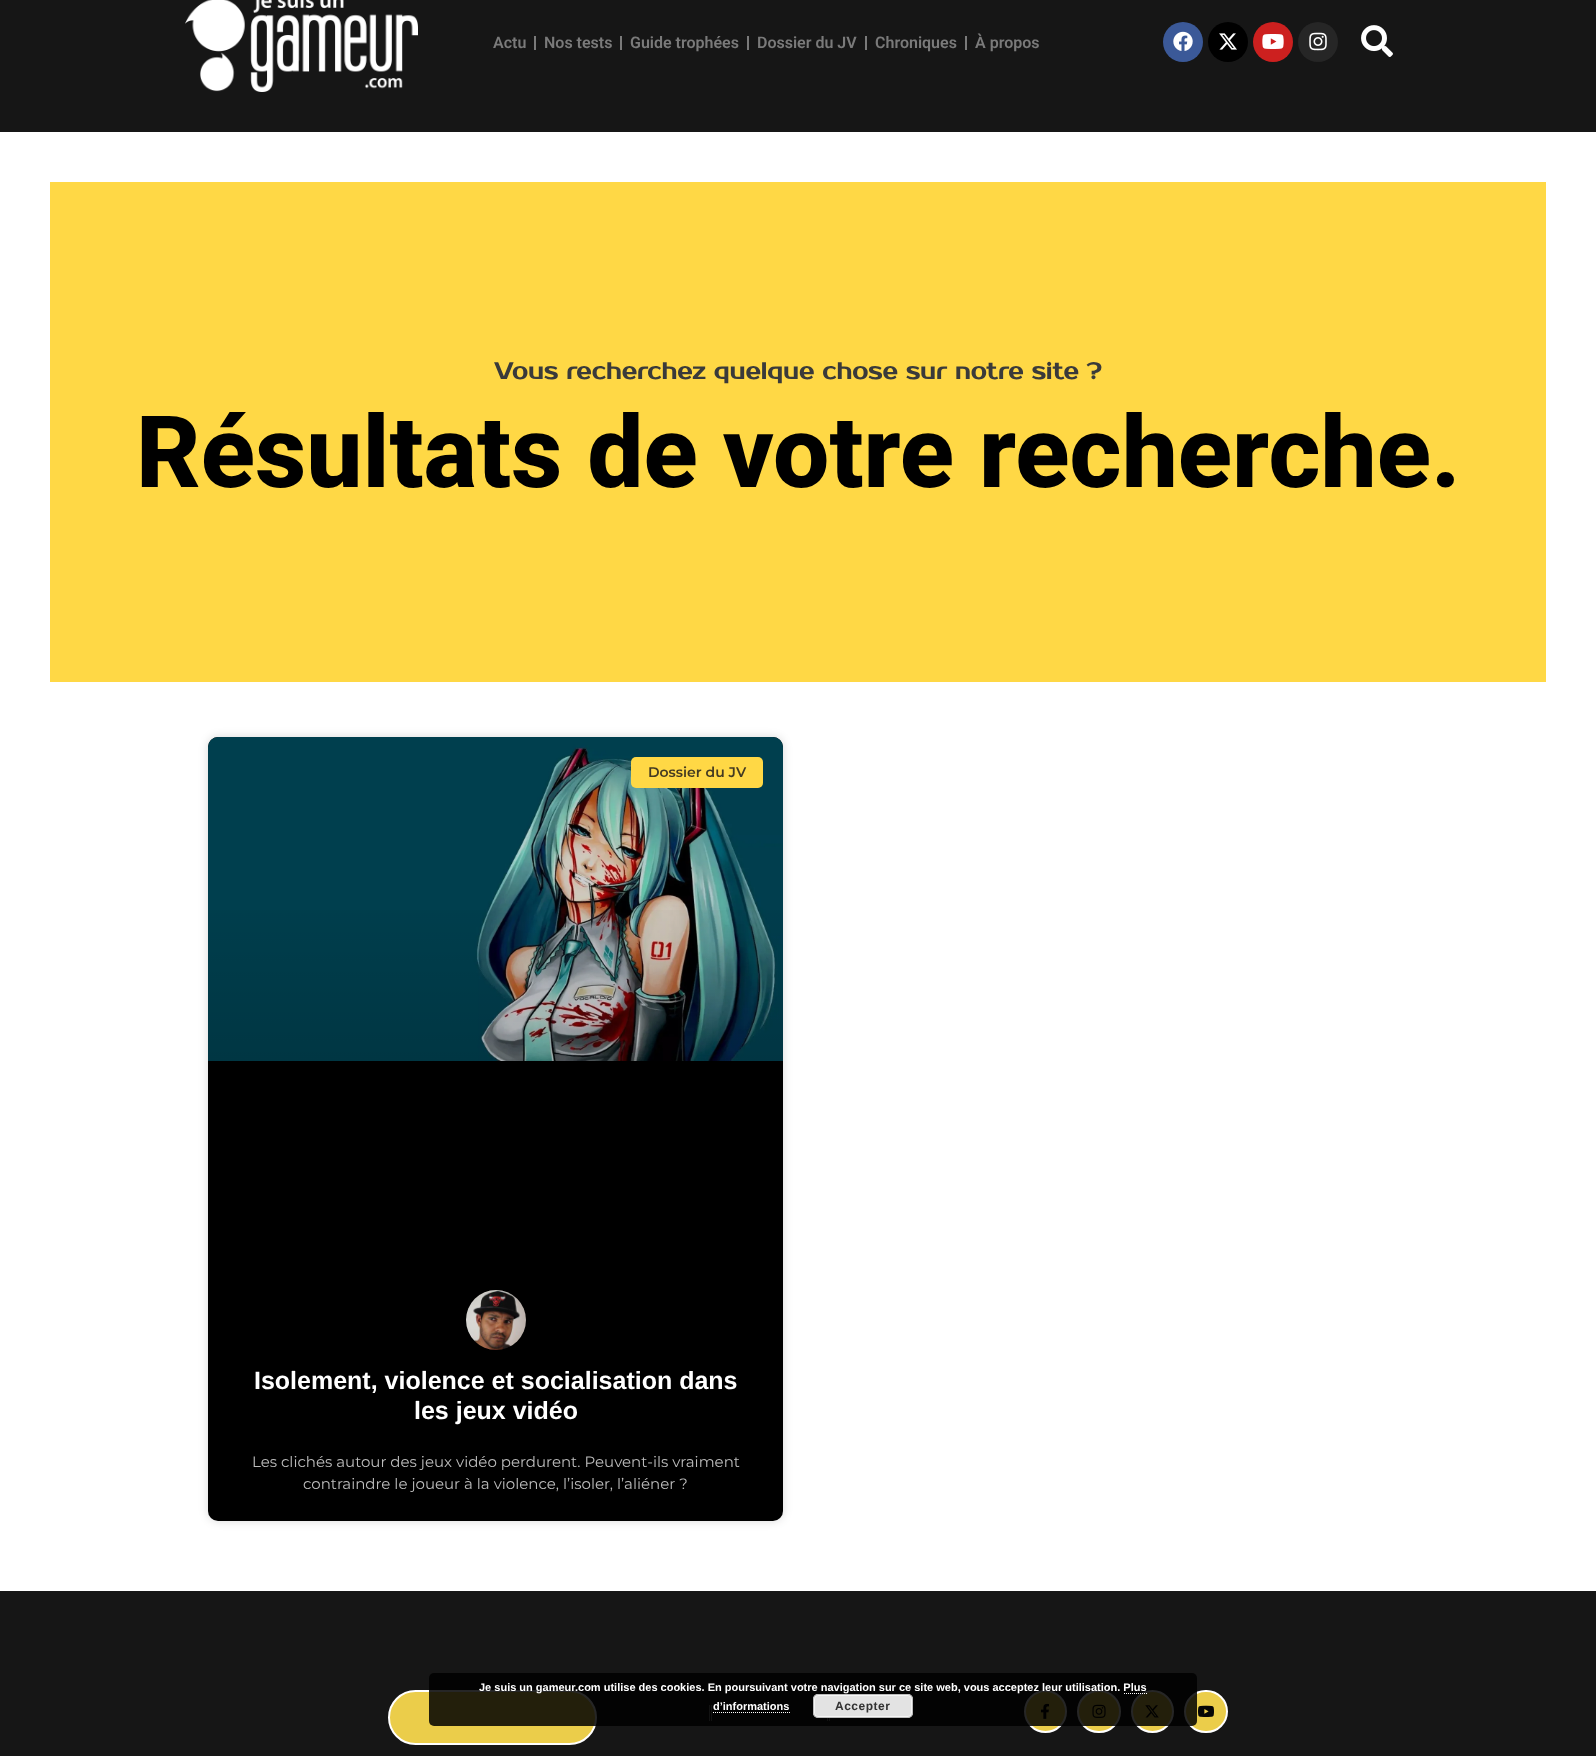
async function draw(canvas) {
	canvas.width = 1596;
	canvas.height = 1756;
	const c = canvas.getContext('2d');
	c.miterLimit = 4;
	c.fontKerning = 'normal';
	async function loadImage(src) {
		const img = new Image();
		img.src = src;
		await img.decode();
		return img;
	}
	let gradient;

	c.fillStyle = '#fff';
	c.fillRect(0, 0, 1596, 1756);
	c.fillStyle = '#161616';
	c.fillRect(0, 0, 1596, 132);
	c.drawImage(await loadImage('img1.png'), 185, 0, 233, 92);
	c.font = '600 16px Roboto';
	c.fillStyle = '#7a7a7a';
	c.fillText('Actu', 493, 48);
	c.fillRect(534, 36, 2, 14);
	c.fillText('Nos tests', 544, 48);
	c.fillRect(620, 36, 2, 14);
	c.fillText('Guide trophées', 630, 48);
	c.fillRect(747, 36, 2, 14);
	c.fillText('Dossier du JV', 757, 48);
	c.fillRect(865, 36, 2, 14);
	c.fillText('Chroniques', 875, 48);
	c.fillRect(965, 36, 2, 14);
	c.fillText('À propos', 975, 48);
	c.fillStyle = '#3b5998';
	c.beginPath();
	c.arc(1183, 42, 20, 0, 2 * Math.PI);
	c.fill();
	c.drawImage(await loadImage('img2.png'), 1173, 31, 20, 20);
	c.fillStyle = '#000';
	c.beginPath();
	c.arc(1228, 42, 20, 0, 2 * Math.PI);
	c.fill();
	c.drawImage(await loadImage('img3.png'), 1219, 33, 18, 17);
	c.fillStyle = '#cd201f';
	c.beginPath();
	c.arc(1273, 42, 20, 0, 2 * Math.PI);
	c.fill();
	c.drawImage(await loadImage('img4.png'), 1262, 34, 22, 15);
	c.fillStyle = '#262626';
	c.beginPath();
	c.arc(1318, 42, 20, 0, 2 * Math.PI);
	c.fill();
	c.drawImage(await loadImage('img5.png'), 1309, 32, 18, 19);
	c.drawImage(await loadImage('img6.png'), 1361, 25, 32, 32);
	c.fillStyle = '#ffd845';
	c.fillRect(50, 182, 1496, 500);
	c.font = 'bold 23px Prosto One';
	c.fillStyle = '#3a3a3a';
	c.fillText('Vous recherchez quelque chose sur notre site ?', 494, 379);
	c.font = '800 100px Roboto';
	c.fillStyle = '#000';
	c.fillText('Résultats de votre recherche.', 136, 487);
	c.fillStyle = '#00000026';
	c.filter = 'blur(5px)';
	c.beginPath();
	c.roundRect(208, 737, 575, 784, 10);
	c.fill();
	c.filter = 'none';
	c.fillStyle = '#000';
	c.beginPath();
	c.roundRect(208, 737, 575, 784, 10);
	c.fill();
	c.drawImage(await loadImage('img7.png'), 208, 737, 575, 324);
	gradient = c.createLinearGradient(496, 1320, 496, 737);
	gradient.addColorStop(0, '#00000059');
	gradient.addColorStop(0.75, '#00000000');
	c.fillStyle = gradient;
	c.fillRect(208, 910, 575, 151);
	c.fillStyle = '#ffd845';
	c.beginPath();
	c.roundRect(631, 757, 132, 31, 5);
	c.fill();
	c.font = '600 14px Montserrat';
	c.fillStyle = '#433a22';
	c.fillText('Dossier du JV', 648, 777);
	c.drawImage(await loadImage('img8.png'), 466, 1290, 60, 60);
	c.font = 'bold 25px Liberation Sans';
	c.fillStyle = '#fff';
	c.fillText('Isolement, violence et socialisation dans', 254, 1389);
	c.fillText('les jeux vidéo', 414, 1419);
	c.font = '15px Montserrat';
	c.fillStyle = '#bcbcbc';
	c.fillText('Les clichés autour des jeux vidéo perdurent. Peuvent-ils vraiment', 252, 1467);
	c.fillText('contraindre le joueur à la violence, l’isoler, l’aliéner ?', 303, 1489);
	c.fillStyle = '#161616';
	c.fillRect(0, 1591, 1596, 165);
	c.fillStyle = '#ebcd4a';
	c.beginPath();
	c.roundRect(389, 1691, 207, 53, 26.5);
	c.fill();
	c.strokeStyle = '#fff';
	c.lineWidth = 2;
	c.stroke();
	for (const [x, y, w, h, color] of [
		[709, 1705, 1, 16, '#7a7a7a'],
		[711, 1705, 1, 16, '#7a7a7a'],
		[827, 1718, 1, 3, '#7a7a7a'],
		[829, 1718, 1, 3, '#7a7a7a'],
	]) {
		c.fillStyle = color;
		c.fillRect(x, y, w, h);
	}
	c.fillStyle = '#ebcd4a';
	c.beginPath();
	c.arc(1045.5, 1711.5, 20.5, 0, 2 * Math.PI);
	c.fill();
	c.stroke();
	c.drawImage(await loadImage('img9.png'), 1041, 1703, 8, 16);
	c.beginPath();
	c.roundRect(1078, 1691, 42, 41, 20.5);
	c.fill();
	c.stroke();
	c.drawImage(await loadImage('img10.png'), 1092, 1704, 14, 14);
	c.beginPath();
	c.arc(1152.5, 1711.5, 20.5, 0, 2 * Math.PI);
	c.fill();
	c.stroke();
	c.drawImage(await loadImage('img11.png'), 1145, 1705, 14, 13);
	c.beginPath();
	c.roundRect(1185, 1691, 42, 41, 20.5);
	c.fill();
	c.stroke();
	c.drawImage(await loadImage('img12.png'), 1198, 1705, 16, 12);
	c.fillStyle = '#000000d9';
	c.beginPath();
	c.roundRect(429, 1673, 768, 53, 5);
	c.fill();
	c.font = 'bold 11px Liberation Sans';
	c.fillStyle = '#fff';
	c.fillText('Je suis un gameur.com utilise des cookies. En poursuivant votre navigation sur ce site web, vous acceptez leur utilisation. Plus', 479, 1691);
	c.fillText('d’informations', 713, 1710);
	c.beginPath();
	c.moveTo(1124, 1693.5);
	c.lineTo(1147, 1693.5);
	c.lineWidth = 1;
	c.setLineDash([1, 1]);
	c.stroke();
	c.beginPath();
	c.moveTo(713, 1712.5);
	c.lineTo(790, 1712.5);
	c.stroke();
	c.fillStyle = '#e3e3e3';
	c.beginPath();
	c.roundRect(813, 1694, 100, 24, 5);
	c.fill();
	c.beginPath();
	c.roundRect(814.5, 1695.5, 97, 21, 3.5);
	c.strokeStyle = '#f6f6f6';
	c.setLineDash([]);
	c.stroke();
	c.beginPath();
	c.roundRect(813.5, 1694.5, 99, 23, 4.5);
	c.strokeStyle = '#bbb';
	c.stroke();
	c.letterSpacing = '0.5px';
	c.font = 'bold 12px Liberation Sans';
	c.fillStyle = '#333';
	c.fillText('Accepter', 835, 1710);
}

draw(document.querySelector('canvas'));
